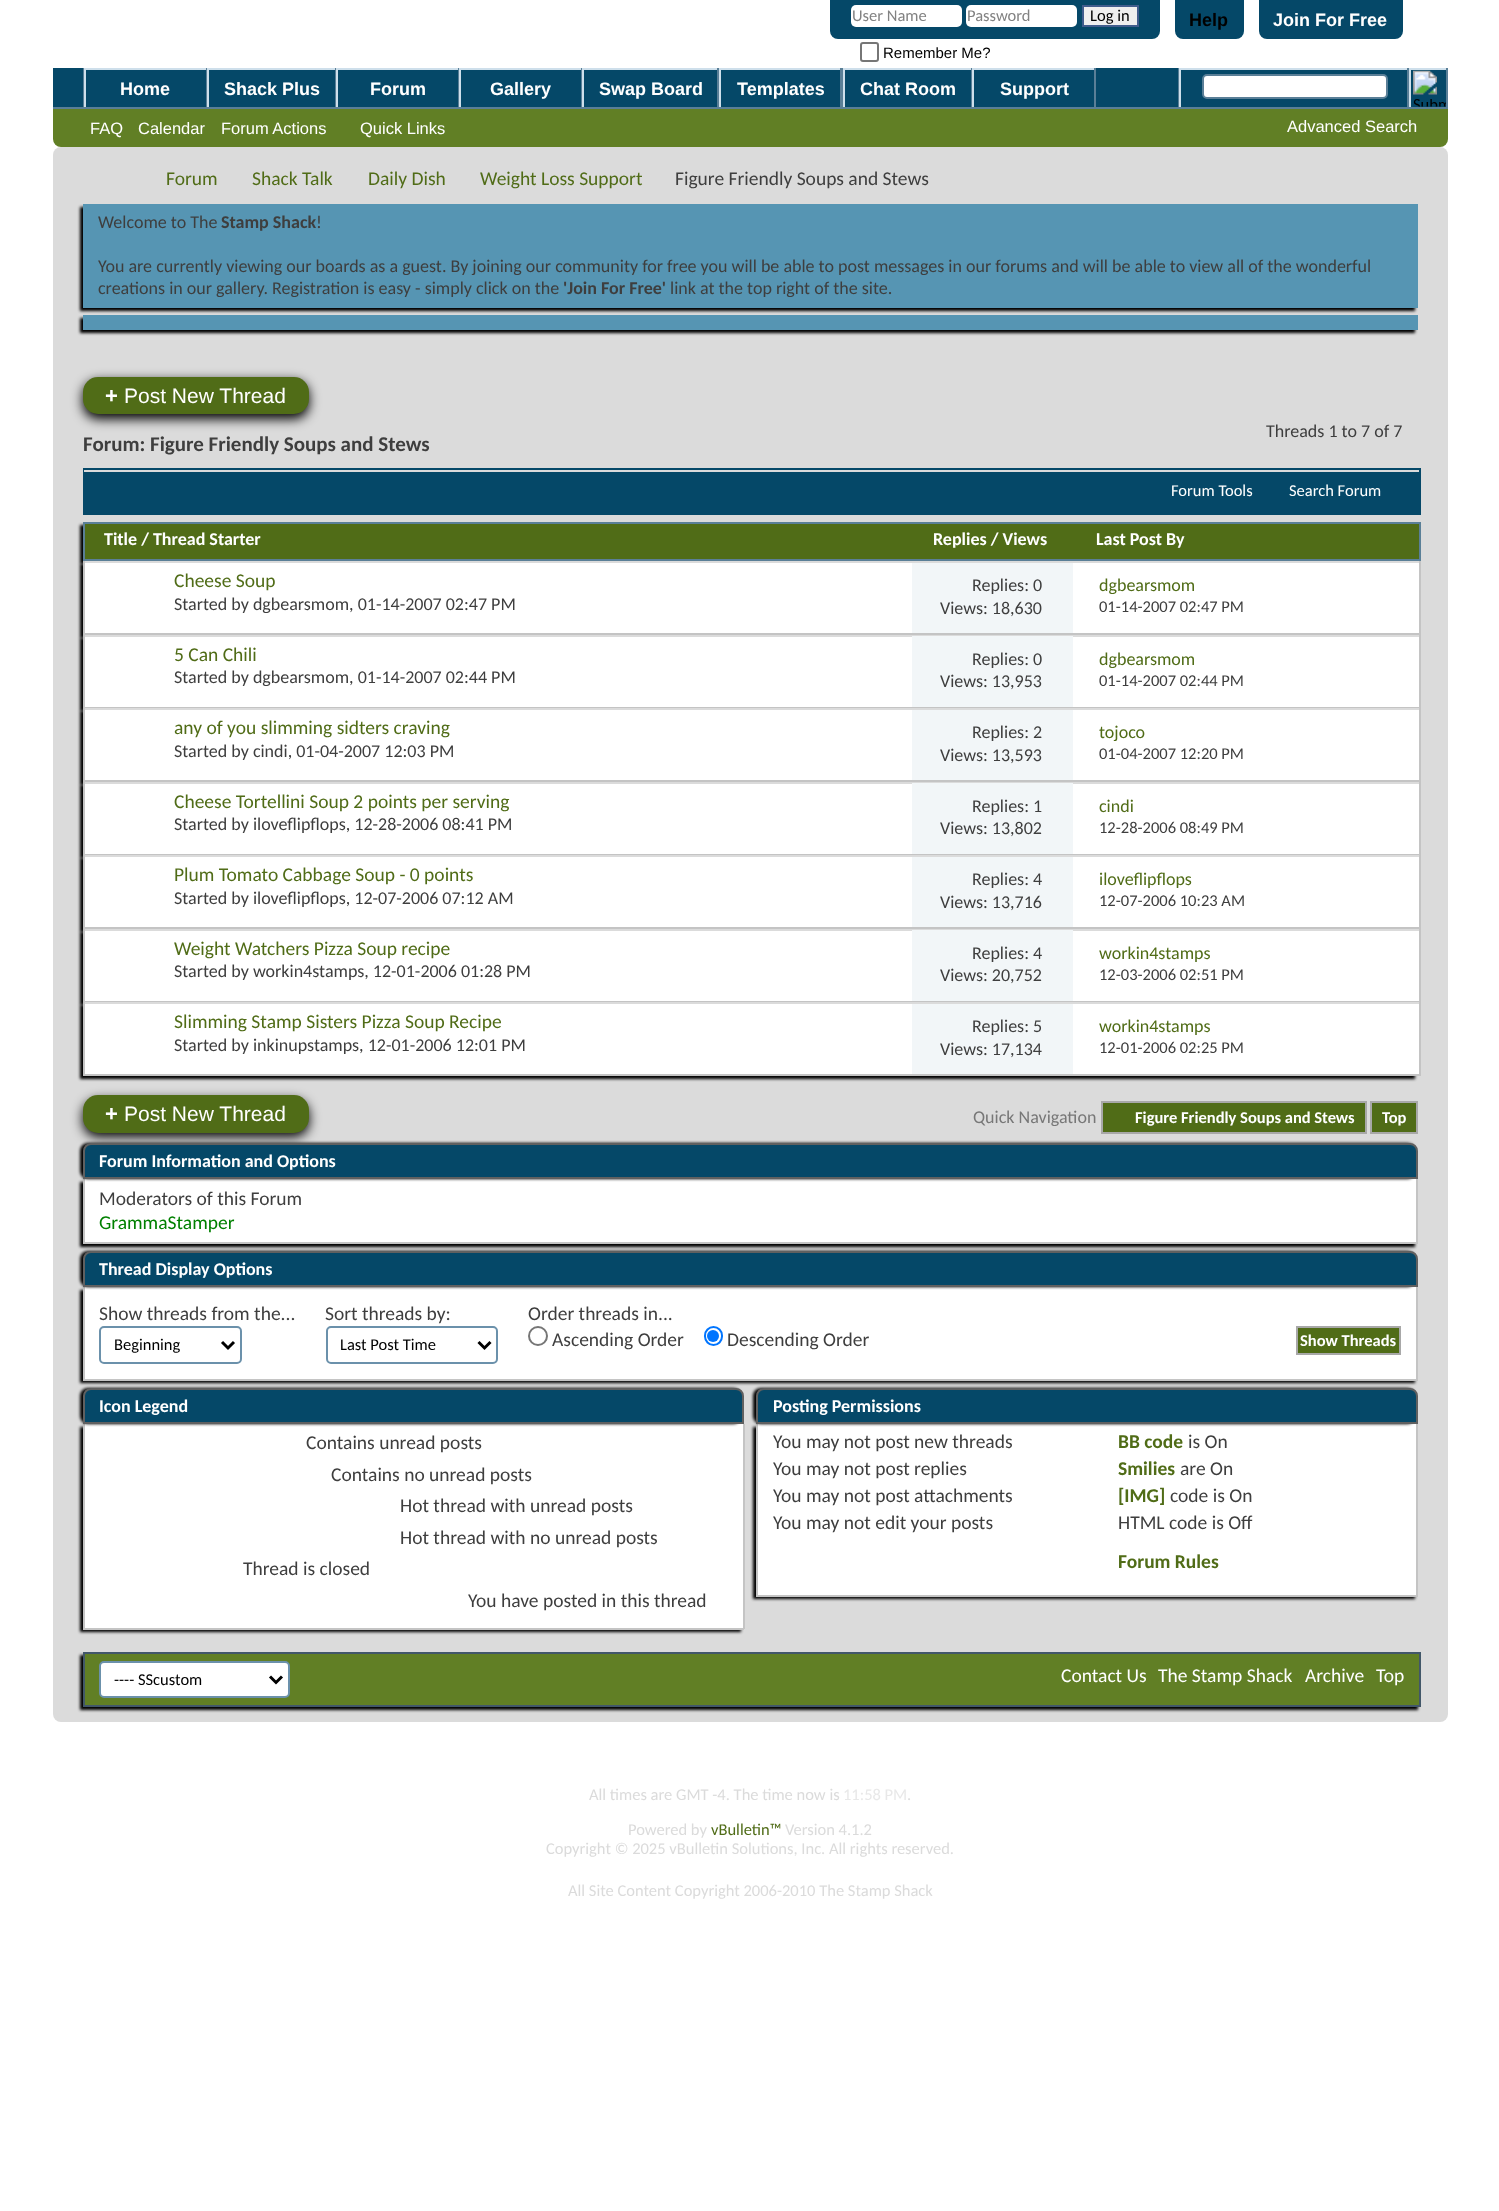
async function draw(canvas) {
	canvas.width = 1499;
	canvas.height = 2211;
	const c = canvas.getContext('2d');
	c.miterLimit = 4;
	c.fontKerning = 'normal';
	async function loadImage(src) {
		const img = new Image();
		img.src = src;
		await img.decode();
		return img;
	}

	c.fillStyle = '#fff';
	c.fillRect(0, 0, 1499, 2211);
	c.fillStyle = '#054868';
	c.beginPath();
	c.roundRect(830, 0, 330, 39, [0, 0, 8, 8]);
	c.fill();
	c.fillStyle = '#fff';
	c.beginPath();
	c.roundRect(851, 5, 111, 22, 5);
	c.fill();
	c.font = '16.5px Carlito';
	c.fillStyle = '#828282';
	c.fillText('User Name', 852, 21);
	c.fillStyle = '#fff';
	c.beginPath();
	c.roundRect(966, 5, 111, 22, 5);
	c.fill();
	c.fillStyle = '#828282';
	c.fillText('Password', 967, 21);
	c.fillStyle = '#efefef';
	c.beginPath();
	c.rect(1083, 6, 55, 20);
	c.fill();
	c.strokeStyle = '#415d8d';
	c.lineWidth = 2;
	c.stroke();
	c.fillStyle = '#000';
	c.fillText('Log in', 1090, 21);
	c.beginPath();
	c.roundRect(861, 43, 17, 18, 2);
	c.strokeStyle = '#767676';
	c.stroke();
	c.font = '15px Liberation Sans';
	c.fillText('Remember Me?', 883, 58);
	c.fillStyle = '#054868';
	c.beginPath();
	c.roundRect(1175, 0, 69, 39, [0, 0, 8, 8]);
	c.fill();
	c.font = 'bold 18px Liberation Sans';
	c.fillStyle = '#000';
	c.fillText('Help', 1189, 26);
	c.fillStyle = '#054868';
	c.beginPath();
	c.roundRect(1259, 0, 144, 39, [0, 0, 8, 8]);
	c.fill();
	c.fillStyle = '#fff';
	c.fillText('Join For Free', 1273, 26);
	c.fillStyle = '#617f25';
	c.beginPath();
	c.roundRect(53, 68, 1395, 79, [0, 0, 8, 8]);
	c.fill();
	for (const [x, y, w, h, color] of [
		[53, 68, 1393, 39, '#054868'],
		[206, 68, 1, 40, '#5a7f97'],
		[83, 68, 1, 40, '#5a7f97'],
		[84, 68, 122, 2, '#cedfeb'],
		[84, 68, 2, 40, '#cedfeb'],
	]) {
		c.fillStyle = color;
		c.fillRect(x, y, w, h);
	}
	c.fillStyle = '#fff';
	c.fillText('Home', 120, 95);
	for (const [x, y, w, h, color] of [
		[335, 68, 1, 40, '#5a7f97'],
		[207, 68, 128, 2, '#cedfeb'],
		[207, 68, 2, 40, '#cedfeb'],
	]) {
		c.fillStyle = color;
		c.fillRect(x, y, w, h);
	}
	c.fillStyle = '#fff';
	c.fillText('Shack Plus', 224, 95);
	for (const [x, y, w, h, color] of [
		[458, 68, 1, 40, '#5a7f97'],
		[336, 68, 122, 2, '#cedfeb'],
		[336, 68, 2, 40, '#cedfeb'],
	]) {
		c.fillStyle = color;
		c.fillRect(x, y, w, h);
	}
	c.fillStyle = '#fff';
	c.fillText('Forum', 370, 95);
	for (const [x, y, w, h, color] of [
		[581, 68, 1, 40, '#5a7f97'],
		[459, 68, 122, 2, '#cedfeb'],
		[459, 68, 2, 40, '#cedfeb'],
	]) {
		c.fillStyle = color;
		c.fillRect(x, y, w, h);
	}
	c.fillStyle = '#fff';
	c.fillText('Gallery', 490, 95);
	for (const [x, y, w, h, color] of [
		[717, 68, 2, 40, '#5a7f97'],
		[582, 68, 135, 2, '#cedfeb'],
		[582, 68, 2, 40, '#cedfeb'],
	]) {
		c.fillStyle = color;
		c.fillRect(x, y, w, h);
	}
	c.fillStyle = '#fff';
	c.fillText('Swap Board', 599, 95);
	for (const [x, y, w, h, color] of [
		[840, 68, 2, 40, '#5a7f97'],
		[719, 68, 121, 2, '#cedfeb'],
		[719, 68, 2, 40, '#cedfeb'],
	]) {
		c.fillStyle = color;
		c.fillRect(x, y, w, h);
	}
	c.fillStyle = '#fff';
	c.fillText('Templates', 737, 95);
	for (const [x, y, w, h, color] of [
		[971, 68, 1, 40, '#5a7f97'],
		[843, 68, 128, 2, '#cedfeb'],
		[843, 68, 2, 40, '#cedfeb'],
	]) {
		c.fillStyle = color;
		c.fillRect(x, y, w, h);
	}
	c.fillStyle = '#fff';
	c.fillText('Chat Room', 860, 95);
	for (const [x, y, w, h, color] of [
		[1094, 68, 2, 40, '#5a7f97'],
		[972, 68, 122, 2, '#cedfeb'],
		[972, 68, 2, 40, '#cedfeb'],
	]) {
		c.fillStyle = color;
		c.fillRect(x, y, w, h);
	}
	c.fillStyle = '#fff';
	c.fillText('Support', 1000, 95);
	c.fillStyle = '#5a7f97';
	c.fillRect(842, 68, 1, 39);
	c.fillRect(53, 107, 1395, 2);
	c.font = '16.5px Liberation Sans';
	c.fillStyle = '#fff';
	for (const [text, x, y] of [
		['FAQ', 90, 134],
		['Calendar', 138, 134],
		['Forum Actions', 221, 134],
		['Quick Links', 360, 134],
	]) {
		c.fillText(text, x, y);
	}
	for (const [x, y, w, h, color] of [
		[1178, 68, 1, 39, '#5a7f97'],
		[1179, 68, 228, 2, '#cedfeb'],
		[1179, 68, 2, 39, '#cedfeb'],
	]) {
		c.fillStyle = color;
		c.fillRect(x, y, w, h);
	}
	c.fillStyle = '#fff';
	c.beginPath();
	c.roundRect(1203, 75, 184, 23, 4);
	c.fill();
	c.strokeStyle = '#5a7f97';
	c.stroke();
	for (const [x, y, w, h, color] of [
		[1446, 68, 2, 39, '#5a7f97'],
		[1407, 68, 2, 39, '#5a7f97'],
		[1409, 68, 37, 2, '#cedfeb'],
		[1409, 68, 2, 39, '#cedfeb'],
	]) {
		c.fillStyle = color;
		c.fillRect(x, y, w, h);
	}
	c.drawImage(await loadImage('img1.png'), 1413, 70, 33, 37);
	c.fillStyle = '#fff';
	c.fillText('Advanced Search', 1287, 132);
	c.fillStyle = '#dbdbdb';
	c.beginPath();
	c.roundRect(53, 147, 1395, 1575, 8);
	c.fill();
	c.font = '19.5px Carlito';
	c.fillStyle = '#506c17';
	for (const [text, x, y] of [
		['Forum', 166, 185],
		['Shack Talk', 252, 185],
		['Daily Dish', 368, 185],
		['Weight Loss Support', 480, 185],
	]) {
		c.fillText(text, x, y);
	}
	c.fillStyle = '#3e3e3e';
	c.fillText('Figure Friendly Soups and Stews', 675, 185);
	c.fillStyle = '#000';
	c.filter = 'blur(1.5px)';
	c.beginPath();
	c.rect(80, 207, 1335, 104);
	c.fill();
	c.filter = 'none';
	c.fillStyle = '#5695b3';
	c.fillRect(83, 204, 1335, 104);
	c.font = '18px Carlito';
	c.fillStyle = '#3e3e3e';
	c.fillText('Welcome to The', 98, 228);
	c.font = 'bold 18px Carlito';
	c.fillText('Stamp Shack', 221, 228);
	c.font = '18px Carlito';
	for (const [text, x, y] of [
		['!', 316, 228],
		['You are currently viewing our boards as a guest. By joining our community for free you will be able to post messages in our forums and will be able to view all of the wonderful', 98, 272],
		['creations in our gallery. Registration is easy - simply click on the', 98, 294],
	]) {
		c.fillText(text, x, y);
	}
	c.font = 'bold 18px Carlito';
	c.fillText('\'Join For Free\'', 563, 294);
	c.font = '18px Carlito';
	c.fillText('link at the top right of the site.', 670, 294);
	c.fillStyle = '#000';
	c.filter = 'blur(1.5px)';
	c.beginPath();
	c.rect(80, 318, 1335, 15);
	c.fill();
	c.filter = 'none';
	c.fillStyle = '#5695b3';
	c.fillRect(83, 315, 1335, 15);
	c.fillStyle = '#000';
	c.filter = 'blur(6px)';
	c.beginPath();
	c.roundRect(83, 381, 226, 38, 15);
	c.fill();
	c.filter = 'none';
	c.fillStyle = '#506c17';
	c.beginPath();
	c.roundRect(83, 377, 226, 37, 15);
	c.fill();
	c.font = 'bold 22px Liberation Sans';
	c.fillStyle = '#fff';
	c.fillText('+', 105, 403);
	c.font = '21px Liberation Sans';
	c.fillText('Post New Thread', 124, 403);
	c.font = '18px Carlito';
	c.fillStyle = '#3e3e3e';
	c.fillText('Threads 1 to 7 of 7', 1266, 437);
	c.font = 'bold 21px Carlito';
	c.fillText('Forum: Figure Friendly Soups and Stews', 83, 451);
	c.fillStyle = '#054868';
	c.fillRect(83, 468, 1338, 47);
	c.fillStyle = '#dbdbdb';
	c.fillRect(84, 470, 1335, 2);
	c.font = '16.5px Carlito';
	c.fillStyle = '#fff';
	c.fillText('Forum Tools', 1171, 496);
	c.fillText('Search Forum', 1289, 496);
	c.fillStyle = '#000';
	c.filter = 'blur(1.5px)';
	c.beginPath();
	c.rect(80, 525, 1338, 39);
	c.fill();
	c.filter = 'none';
	c.fillStyle = '#506c17';
	c.beginPath();
	c.rect(84, 523, 1336, 37);
	c.fill();
	c.stroke();
	c.font = 'bold 18px Carlito';
	c.fillStyle = '#fff';
	for (const [text, x, y] of [
		['Title / Thread Starter', 104, 545],
		['Replies / Views', 933, 545],
		['Last Post By', 1096, 545],
	]) {
		c.fillText(text, x, y);
	}
	c.fillStyle = '#000';
	c.filter = 'blur(1.5px)';
	c.beginPath();
	c.rect(80, 564, 1335, 74);
	c.fill();
	c.filter = 'none';
	for (const [x, y, w, h, color] of [
		[85, 563, 1334, 70, '#fff'],
		[83, 561, 1338, 2, '#dbdbdb'],
		[1419, 561, 2, 74, '#c4c4c4'],
		[83, 633, 1338, 2, '#c4c4c4'],
		[83, 561, 2, 74, '#c4c4c4'],
	]) {
		c.fillStyle = color;
		c.fillRect(x, y, w, h);
	}
	c.font = '19.5px Carlito';
	c.fillStyle = '#506c17';
	c.fillText('Cheese Soup', 174, 587);
	c.font = '18px Carlito';
	c.fillStyle = '#3e3e3e';
	c.fillText('Started by dgbearsmom, 01-14-2007 02:47 PM', 174, 610);
	c.fillStyle = '#f2f6f8';
	c.fillRect(912, 563, 161, 70);
	c.fillStyle = '#3e3e3e';
	c.fillText('Replies: 0', 972, 591);
	c.fillText('Views: 18,630', 940, 614);
	c.fillStyle = '#506c17';
	c.fillText('dgbearsmom', 1099, 591);
	c.font = '16.5px Carlito';
	c.fillStyle = '#3e3e3e';
	c.fillText('01-14-2007 02:47 PM', 1099, 612);
	c.fillStyle = '#000';
	c.filter = 'blur(1.5px)';
	c.beginPath();
	c.rect(80, 638, 1335, 73);
	c.fill();
	c.filter = 'none';
	for (const [x, y, w, h, color] of [
		[85, 637, 1334, 70, '#fff'],
		[83, 635, 1338, 2, '#dbdbdb'],
		[1419, 635, 2, 73, '#c4c4c4'],
		[83, 707, 1338, 1, '#c4c4c4'],
		[83, 635, 2, 73, '#c4c4c4'],
	]) {
		c.fillStyle = color;
		c.fillRect(x, y, w, h);
	}
	c.font = '19.5px Carlito';
	c.fillStyle = '#506c17';
	c.fillText('5 Can Chili', 174, 661);
	c.font = '18px Carlito';
	c.fillStyle = '#3e3e3e';
	c.fillText('Started by dgbearsmom, 01-14-2007 02:44 PM', 174, 683);
	c.fillStyle = '#f2f6f8';
	c.fillRect(912, 636, 161, 71);
	c.fillStyle = '#3e3e3e';
	c.fillText('Replies: 0', 972, 665);
	c.fillText('Views: 13,953', 940, 687);
	c.fillStyle = '#506c17';
	c.fillText('dgbearsmom', 1099, 665);
	c.font = '16.5px Carlito';
	c.fillStyle = '#3e3e3e';
	c.fillText('01-14-2007 02:44 PM', 1099, 686);
	c.fillStyle = '#000';
	c.filter = 'blur(1.5px)';
	c.beginPath();
	c.rect(80, 711, 1335, 74);
	c.fill();
	c.filter = 'none';
	for (const [x, y, w, h, color] of [
		[85, 710, 1334, 70, '#fff'],
		[83, 708, 1338, 2, '#dbdbdb'],
		[1419, 708, 2, 74, '#c4c4c4'],
		[83, 780, 1338, 2, '#c4c4c4'],
		[83, 708, 2, 74, '#c4c4c4'],
	]) {
		c.fillStyle = color;
		c.fillRect(x, y, w, h);
	}
	c.font = '19.5px Carlito';
	c.fillStyle = '#506c17';
	c.fillText('any of you slimming sidters craving', 174, 734);
	c.font = '18px Carlito';
	c.fillStyle = '#3e3e3e';
	c.fillText('Started by cindi, 01-04-2007 12:03 PM', 174, 757);
	c.fillStyle = '#f2f6f8';
	c.fillRect(912, 710, 161, 70);
	c.fillStyle = '#3e3e3e';
	c.fillText('Replies: 2', 972, 738);
	c.fillText('Views: 13,593', 940, 761);
	c.fillStyle = '#506c17';
	c.fillText('tojoco', 1099, 738);
	c.font = '16.5px Carlito';
	c.fillStyle = '#3e3e3e';
	c.fillText('01-04-2007 12:20 PM', 1099, 759);
	c.fillStyle = '#000';
	c.filter = 'blur(1.5px)';
	c.beginPath();
	c.rect(80, 785, 1335, 73);
	c.fill();
	c.filter = 'none';
	for (const [x, y, w, h, color] of [
		[85, 784, 1334, 70, '#fff'],
		[83, 782, 1338, 2, '#dbdbdb'],
		[1419, 782, 2, 73, '#c4c4c4'],
		[83, 854, 1338, 1, '#c4c4c4'],
		[83, 782, 2, 73, '#c4c4c4'],
	]) {
		c.fillStyle = color;
		c.fillRect(x, y, w, h);
	}
	c.font = '19.5px Carlito';
	c.fillStyle = '#506c17';
	c.fillText('Cheese Tortellini Soup 2 points per serving', 174, 808);
	c.font = '18px Carlito';
	c.fillStyle = '#3e3e3e';
	c.fillText('Started by iloveflipflops, 12-28-2006 08:41 PM', 174, 830);
	c.fillStyle = '#f2f6f8';
	c.fillRect(912, 783, 161, 71);
	c.fillStyle = '#3e3e3e';
	c.fillText('Replies: 1', 972, 812);
	c.fillText('Views: 13,802', 940, 834);
	c.fillStyle = '#506c17';
	c.fillText('cindi', 1099, 812);
	c.font = '16.5px Carlito';
	c.fillStyle = '#3e3e3e';
	c.fillText('12-28-2006 08:49 PM', 1099, 833);
	c.fillStyle = '#000';
	c.filter = 'blur(1.5px)';
	c.beginPath();
	c.rect(80, 858, 1335, 74);
	c.fill();
	c.filter = 'none';
	for (const [x, y, w, h, color] of [
		[85, 857, 1334, 70, '#fff'],
		[83, 855, 1338, 2, '#dbdbdb'],
		[1419, 855, 2, 74, '#c4c4c4'],
		[83, 927, 1338, 2, '#c4c4c4'],
		[83, 855, 2, 74, '#c4c4c4'],
	]) {
		c.fillStyle = color;
		c.fillRect(x, y, w, h);
	}
	c.font = '19.5px Carlito';
	c.fillStyle = '#506c17';
	c.fillText('Plum Tomato Cabbage Soup - 0 points', 174, 881);
	c.font = '18px Carlito';
	c.fillStyle = '#3e3e3e';
	c.fillText('Started by iloveflipflops, 12-07-2006 07:12 AM', 174, 904);
	c.fillStyle = '#f2f6f8';
	c.fillRect(912, 857, 161, 70);
	c.fillStyle = '#3e3e3e';
	c.fillText('Replies: 4', 972, 885);
	c.fillText('Views: 13,716', 940, 908);
	c.fillStyle = '#506c17';
	c.fillText('iloveflipflops', 1099, 885);
	c.font = '16.5px Carlito';
	c.fillStyle = '#3e3e3e';
	c.fillText('12-07-2006 10:23 AM', 1099, 906);
	c.fillStyle = '#000';
	c.filter = 'blur(1.5px)';
	c.beginPath();
	c.rect(80, 932, 1335, 73);
	c.fill();
	c.filter = 'none';
	for (const [x, y, w, h, color] of [
		[85, 931, 1334, 70, '#fff'],
		[83, 929, 1338, 2, '#dbdbdb'],
		[1419, 929, 2, 73, '#c4c4c4'],
		[83, 1001, 1338, 1, '#c4c4c4'],
		[83, 929, 2, 73, '#c4c4c4'],
	]) {
		c.fillStyle = color;
		c.fillRect(x, y, w, h);
	}
	c.font = '19.5px Carlito';
	c.fillStyle = '#506c17';
	c.fillText('Weight Watchers Pizza Soup recipe', 174, 955);
	c.font = '18px Carlito';
	c.fillStyle = '#3e3e3e';
	c.fillText('Started by workin4stamps, 12-01-2006 01:28 PM', 174, 977);
	c.fillStyle = '#f2f6f8';
	c.fillRect(912, 930, 161, 71);
	c.fillStyle = '#3e3e3e';
	c.fillText('Replies: 4', 972, 959);
	c.fillText('Views: 20,752', 940, 981);
	c.fillStyle = '#506c17';
	c.fillText('workin4stamps', 1099, 959);
	c.font = '16.5px Carlito';
	c.fillStyle = '#3e3e3e';
	c.fillText('12-03-2006 02:51 PM', 1099, 980);
	c.fillStyle = '#000';
	c.filter = 'blur(1.5px)';
	c.beginPath();
	c.rect(80, 1005, 1335, 74);
	c.fill();
	c.filter = 'none';
	for (const [x, y, w, h, color] of [
		[85, 1004, 1334, 70, '#fff'],
		[83, 1002, 1338, 2, '#dbdbdb'],
		[1419, 1002, 2, 74, '#c4c4c4'],
		[83, 1074, 1338, 2, '#c4c4c4'],
		[83, 1002, 2, 74, '#c4c4c4'],
	]) {
		c.fillStyle = color;
		c.fillRect(x, y, w, h);
	}
	c.font = '19.5px Carlito';
	c.fillStyle = '#506c17';
	c.fillText('Slimming Stamp Sisters Pizza Soup Recipe', 174, 1028);
	c.font = '18px Carlito';
	c.fillStyle = '#3e3e3e';
	c.fillText('Started by inkinupstamps, 12-01-2006 12:01 PM', 174, 1051);
	c.fillStyle = '#f2f6f8';
	c.fillRect(912, 1004, 161, 70);
	c.fillStyle = '#3e3e3e';
	c.fillText('Replies: 5', 972, 1032);
	c.fillText('Views: 17,134', 940, 1055);
	c.fillStyle = '#506c17';
	c.fillText('workin4stamps', 1099, 1032);
	c.font = '16.5px Carlito';
	c.fillStyle = '#3e3e3e';
	c.fillText('12-01-2006 02:25 PM', 1099, 1053);
	c.fillStyle = '#000';
	c.filter = 'blur(6px)';
	c.beginPath();
	c.roundRect(83, 1100, 226, 37, 15);
	c.fill();
	c.filter = 'none';
	c.fillStyle = '#506c17';
	c.beginPath();
	c.roundRect(83, 1095, 226, 38, 15);
	c.fill();
	c.font = 'bold 22px Liberation Sans';
	c.fillStyle = '#fff';
	c.fillText('+', 105, 1121);
	c.font = '21px Liberation Sans';
	c.fillText('Post New Thread', 124, 1121);
	c.font = '18px Carlito';
	c.fillStyle = '#777';
	c.fillText('Quick Navigation', 973, 1123);
	c.fillStyle = '#506c17';
	c.beginPath();
	c.rect(1102, 1102, 264, 31);
	c.fill();
	c.strokeStyle = '#a8a8a8';
	c.stroke();
	c.font = 'bold 16.5px Carlito';
	c.fillStyle = '#fff';
	c.fillText('Figure Friendly Soups and Stews', 1135, 1123);
	c.fillStyle = '#506c17';
	c.beginPath();
	c.rect(1371, 1102, 46, 31);
	c.fill();
	c.stroke();
	c.fillStyle = '#fff';
	c.fillText('Top', 1382, 1123);
	c.fillStyle = '#000';
	c.filter = 'blur(1.5px)';
	c.beginPath();
	c.rect(80, 1182, 1335, 65);
	c.fill();
	c.filter = 'none';
	for (const [x, y, w, h, color] of [
		[85, 1179, 1331, 63, '#fff'],
		[1416, 1179, 2, 65, '#c4c4c4'],
		[83, 1242, 1335, 2, '#c4c4c4'],
		[83, 1179, 2, 65, '#c4c4c4'],
	]) {
		c.fillStyle = color;
		c.fillRect(x, y, w, h);
	}
	c.fillStyle = '#000';
	c.filter = 'blur(1.5px)';
	c.beginPath();
	c.roundRect(80, 1143, 1335, 36, 8);
	c.fill();
	c.filter = 'none';
	c.fillStyle = '#054868';
	c.beginPath();
	c.roundRect(84, 1144, 1333, 34, [7, 7, 0, 0]);
	c.fill();
	c.strokeStyle = '#606060';
	c.stroke();
	c.font = 'bold 18px Carlito';
	c.fillStyle = '#fff';
	c.fillText('Forum Information and Options', 99, 1167);
	c.font = '19.5px Carlito';
	c.fillStyle = '#3e3e3e';
	c.fillText('Moderators of this Forum', 99, 1205);
	c.fillStyle = '#008000';
	c.fillText('GrammaStamper', 99, 1229);
	c.fillStyle = '#000';
	c.filter = 'blur(1.5px)';
	c.beginPath();
	c.rect(80, 1290, 1335, 93);
	c.fill();
	c.filter = 'none';
	for (const [x, y, w, h, color] of [
		[85, 1287, 1331, 92, '#fff'],
		[1416, 1287, 2, 93, '#c4c4c4'],
		[83, 1379, 1335, 2, '#c4c4c4'],
		[83, 1287, 2, 93, '#c4c4c4'],
	]) {
		c.fillStyle = color;
		c.fillRect(x, y, w, h);
	}
	c.fillStyle = '#000';
	c.filter = 'blur(1.5px)';
	c.beginPath();
	c.roundRect(80, 1251, 1335, 36, 8);
	c.fill();
	c.filter = 'none';
	c.fillStyle = '#054868';
	c.beginPath();
	c.roundRect(84, 1252, 1333, 34, [7, 7, 0, 0]);
	c.fill();
	c.stroke();
	c.font = 'bold 18px Carlito';
	c.fillStyle = '#fff';
	c.fillText('Thread Display Options', 99, 1275);
	c.font = '19.5px Carlito';
	c.fillStyle = '#3e3e3e';
	c.fillText('Show threads from the...', 99, 1320);
	c.beginPath();
	c.roundRect(100, 1327, 141, 36, 4);
	c.strokeStyle = '#6b91ab';
	c.stroke();
	c.beginPath();
	c.moveTo(222, 1342);
	c.lineTo(228, 1348);
	c.lineTo(234, 1342);
	c.strokeStyle = '#000';
	c.lineWidth = 3;
	c.stroke();
	c.font = '16.5px Carlito';
	c.fillStyle = '#000';
	c.fillText('Beginning', 114, 1350);
	c.font = '19.5px Carlito';
	c.fillStyle = '#3e3e3e';
	c.fillText('Sort threads by:', 325, 1320);
	c.beginPath();
	c.roundRect(327, 1327, 170, 36, 4);
	c.strokeStyle = '#6b91ab';
	c.lineWidth = 2;
	c.stroke();
	c.beginPath();
	c.moveTo(478.5, 1342);
	c.lineTo(484.5, 1348);
	c.lineTo(490.5, 1342);
	c.strokeStyle = '#000';
	c.lineWidth = 3;
	c.stroke();
	c.font = '16.5px Carlito';
	c.fillStyle = '#000';
	c.fillText('Last Post Time', 340, 1350);
	c.font = '19.5px Carlito';
	c.fillStyle = '#3e3e3e';
	c.fillText('Order threads in...', 528, 1320);
	c.beginPath();
	c.arc(538, 1336, 9, 0, 2 * Math.PI);
	c.strokeStyle = '#767676';
	c.lineWidth = 2;
	c.stroke();
	c.fillText('Ascending Order', 552, 1346);
	c.beginPath();
	c.roundRect(705, 1327, 17, 18, 8.5);
	c.strokeStyle = '#0075ff';
	c.stroke();
	c.fillStyle = '#0075ff';
	c.beginPath();
	c.arc(713, 1336, 6, 0, 2 * Math.PI);
	c.fill();
	c.fillStyle = '#3e3e3e';
	c.fillText('Descending Order', 727, 1346);
	c.fillStyle = '#506c17';
	c.beginPath();
	c.rect(1297, 1327, 103, 27);
	c.fill();
	c.strokeStyle = '#a8a8a8';
	c.stroke();
	c.font = 'bold 16.5px Carlito';
	c.fillStyle = '#fff';
	c.fillText('Show Threads', 1300, 1346);
	c.fillStyle = '#000';
	c.filter = 'blur(1.5px)';
	c.beginPath();
	c.rect(80, 1427, 661, 205);
	c.fill();
	c.filter = 'none';
	for (const [x, y, w, h, color] of [
		[85, 1424, 658, 204, '#fff'],
		[743, 1424, 2, 205, '#c4c4c4'],
		[83, 1628, 661, 2, '#c4c4c4'],
		[83, 1424, 2, 205, '#c4c4c4'],
	]) {
		c.fillStyle = color;
		c.fillRect(x, y, w, h);
	}
	c.fillStyle = '#000';
	c.filter = 'blur(1.5px)';
	c.beginPath();
	c.roundRect(80, 1388, 661, 36, 8);
	c.fill();
	c.filter = 'none';
	c.fillStyle = '#054868';
	c.beginPath();
	c.roundRect(84, 1389, 659, 34, [7, 7, 0, 0]);
	c.fill();
	c.strokeStyle = '#606060';
	c.stroke();
	c.font = 'bold 18px Carlito';
	c.fillStyle = '#fff';
	c.fillText('Icon Legend', 99, 1412);
	c.font = '19.5px Carlito';
	c.fillStyle = '#3e3e3e';
	for (const [text, x, y] of [
		['Contains unread posts', 306, 1449],
		['Contains no unread posts', 331, 1481],
		['Hot thread with unread posts', 400, 1512],
		['Hot thread with no unread posts', 400, 1544],
		['Thread is closed', 243, 1575],
		['You have posted in this thread', 468, 1607],
	]) {
		c.fillText(text, x, y);
	}
	c.fillStyle = '#000';
	c.filter = 'blur(1.5px)';
	c.beginPath();
	c.rect(753, 1427, 662, 172);
	c.fill();
	c.filter = 'none';
	for (const [x, y, w, h, color] of [
		[758, 1424, 658, 171, '#fff'],
		[1416, 1424, 2, 172, '#c4c4c4'],
		[756, 1595, 662, 2, '#c4c4c4'],
		[756, 1424, 2, 172, '#c4c4c4'],
	]) {
		c.fillStyle = color;
		c.fillRect(x, y, w, h);
	}
	c.fillStyle = '#000';
	c.filter = 'blur(1.5px)';
	c.beginPath();
	c.roundRect(753, 1388, 662, 36, 8);
	c.fill();
	c.filter = 'none';
	c.fillStyle = '#054868';
	c.beginPath();
	c.roundRect(757, 1389, 660, 34, [7, 7, 0, 0]);
	c.fill();
	c.stroke();
	c.font = 'bold 18px Carlito';
	c.fillStyle = '#fff';
	c.fillText('Posting Permissions', 773, 1412);
	c.font = '19.5px Carlito';
	c.fillStyle = '#3e3e3e';
	for (const [text, x, y] of [
		['You may not post new threads', 773, 1448],
		['You may not post replies', 773, 1475],
		['You may not post attachments', 773, 1502],
		['You may not edit your posts', 773, 1529],
	]) {
		c.fillText(text, x, y);
	}
	c.font = 'bold 19.5px Carlito';
	c.fillStyle = '#506c17';
	c.fillText('BB code', 1118, 1448);
	c.font = '19.5px Carlito';
	c.fillStyle = '#3e3e3e';
	c.fillText('is On', 1188, 1448);
	c.font = 'bold 19.5px Carlito';
	c.fillStyle = '#506c17';
	c.fillText('Smilies', 1118, 1475);
	c.font = '19.5px Carlito';
	c.fillStyle = '#3e3e3e';
	c.fillText('are On', 1180, 1475);
	c.font = 'bold 19.5px Carlito';
	c.fillStyle = '#506c17';
	c.fillText('[IMG]', 1118, 1502);
	c.font = '19.5px Carlito';
	c.fillStyle = '#3e3e3e';
	c.fillText('code is On', 1170, 1502);
	c.fillText('HTML code is Off', 1118, 1529);
	c.font = 'bold 19.5px Carlito';
	c.fillStyle = '#506c17';
	c.fillText('Forum Rules', 1118, 1568);
	c.fillStyle = '#000';
	c.filter = 'blur(1.5px)';
	c.beginPath();
	c.rect(80, 1655, 1338, 55);
	c.fill();
	c.filter = 'none';
	c.fillStyle = '#617f25';
	c.beginPath();
	c.rect(84, 1653, 1336, 53);
	c.fill();
	c.strokeStyle = '#425769';
	c.stroke();
	c.fillStyle = '#fff';
	c.beginPath();
	c.roundRect(100, 1662, 189, 35, 4);
	c.fill();
	c.strokeStyle = '#6b91ab';
	c.stroke();
	c.beginPath();
	c.moveTo(270, 1676.5);
	c.lineTo(276, 1682.5);
	c.lineTo(282, 1676.5);
	c.strokeStyle = '#000';
	c.lineWidth = 3;
	c.stroke();
	c.font = '16.5px Carlito';
	c.fillStyle = '#000';
	c.fillText('---- SScustom', 114, 1685);
	c.font = '19.5px Carlito';
	c.fillStyle = '#fff';
	for (const [text, x, y] of [
		['Contact Us', 1061, 1682],
		['The Stamp Shack', 1158, 1682],
		['Archive', 1305, 1682],
		['Top', 1376, 1682],
	]) {
		c.fillText(text, x, y);
	}
	c.font = '16.5px Carlito';
	c.fillStyle = '#dbdbdb';
	c.fillText('All times are GMT -4. The time now is', 589, 1800);
	c.fillStyle = '#e8e8e8';
	c.fillText('11:58 PM', 843, 1800);
	c.fillStyle = '#dbdbdb';
	c.fillText('.', 907, 1800);
	c.fillText('Powered by', 628, 1835);
	c.fillStyle = '#506c17';
	c.fillText('vBulletin™', 711, 1835);
	c.fillStyle = '#dbdbdb';
	for (const [text, x, y] of [
		['Version 4.1.2', 785, 1835],
		['Copyright © 2025 vBulletin Solutions, Inc. All rights reserved.', 546, 1854],
		['All Site Content Copyright 2006-2010 The Stamp Shack', 568, 1896],
	]) {
		c.fillText(text, x, y);
	}
}

draw(document.querySelector('canvas'));
